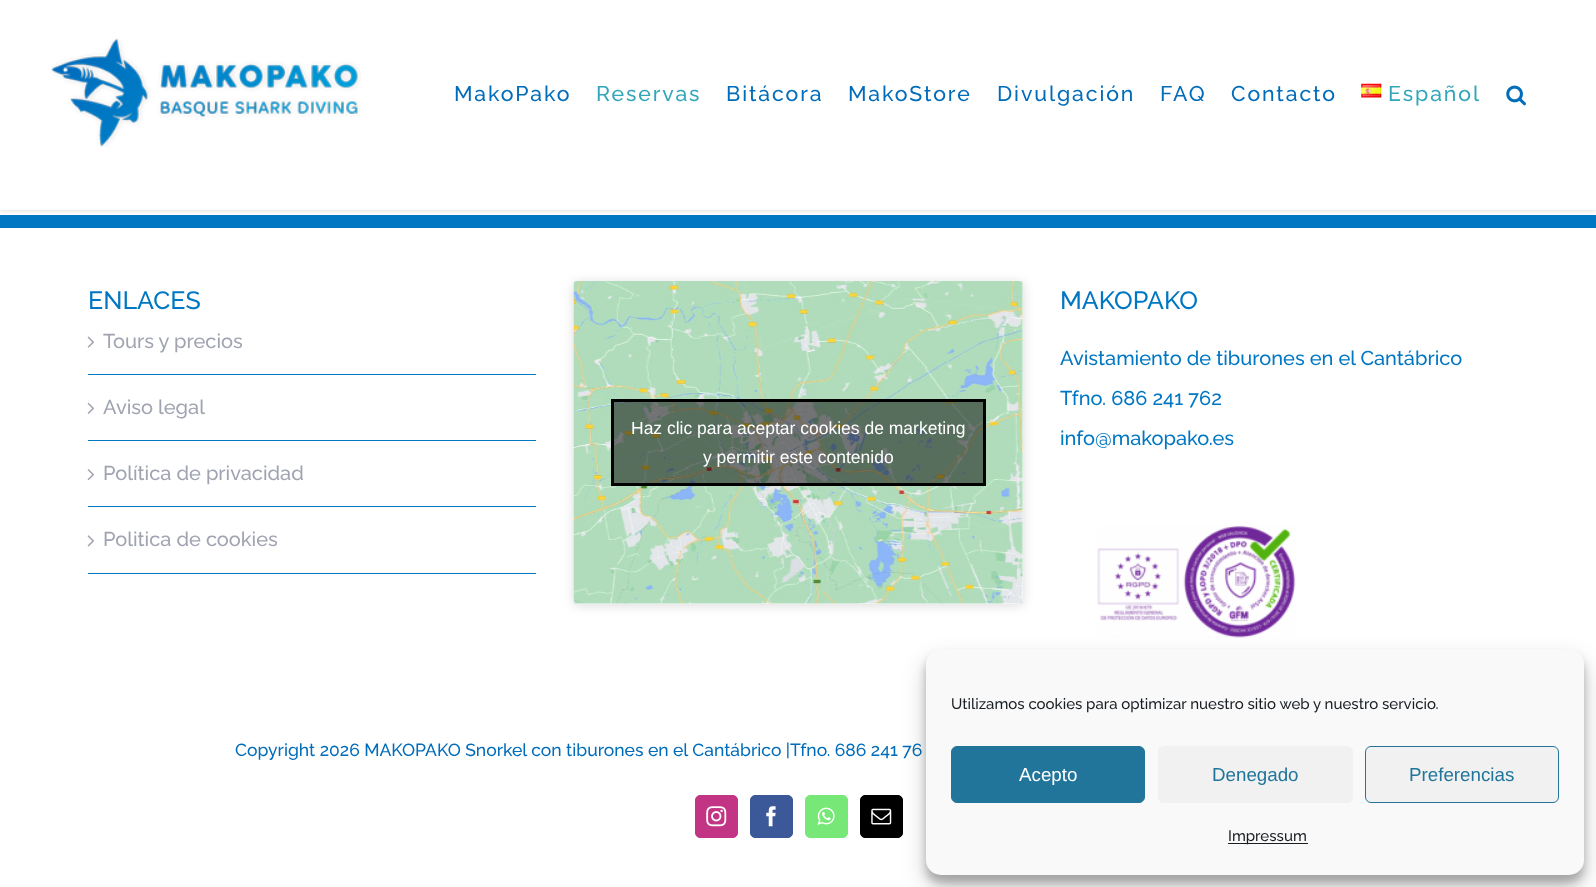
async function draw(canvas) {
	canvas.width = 1596;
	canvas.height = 887;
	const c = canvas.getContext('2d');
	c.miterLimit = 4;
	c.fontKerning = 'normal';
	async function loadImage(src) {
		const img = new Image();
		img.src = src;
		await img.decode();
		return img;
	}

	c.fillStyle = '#fff';
	c.fillRect(0, 0, 1596, 887);
	c.fillStyle = '#0077c3';
	c.fillRect(0, 215, 1596, 13);
	c.fillStyle = '#0000001f';
	c.filter = 'blur(2px)';
	c.beginPath();
	c.rect(0, 1, 1596, 210);
	c.fill();
	c.filter = 'none';
	c.fillStyle = '#fff';
	c.fillRect(0, 0, 1596, 210);
	c.drawImage(await loadImage('img1.png'), 51, 38, 310, 109);
	c.letterSpacing = '1.9px';
	c.font = '500 21.25px Raleway';
	c.fillStyle = '#006cba';
	c.fillText('MakoPako', 454, 101);
	c.fillStyle = '#33a7b9';
	c.fillText('Reservas', 596, 101);
	c.fillStyle = '#006cba';
	for (const [text, x, y] of [
		['Bitácora', 726, 101],
		['MakoStore', 848, 101],
		['Divulgación', 997, 101],
		['FAQ', 1160, 101],
		['Contacto', 1231, 101],
	]) {
		c.fillText(text, x, y);
	}
	c.drawImage(await loadImage('img2.png'), 1361, 83, 21, 15);
	c.fillStyle = '#33a7b9';
	c.fillText('Español', 1388, 101);
	c.drawImage(await loadImage('img3.png'), 1506, 85, 20, 21);
	c.letterSpacing = '0px';
	c.font = '500 25px Raleway';
	c.fillStyle = '#0077c3';
	c.fillText('ENLACES', 88, 309);
	c.fillRect(88, 374, 448, 1);
	c.drawImage(await loadImage('img4.png'), 87, 336, 7, 12);
	c.font = '500 20px Raleway';
	c.fillStyle = '#a0a4b1';
	c.fillText('Tours y precios', 103, 348);
	c.fillStyle = '#0077c3';
	c.fillRect(88, 440, 448, 1);
	c.drawImage(await loadImage('img5.png'), 87, 402, 8, 12);
	c.fillStyle = '#a0a4b1';
	c.fillText('Aviso legal', 103, 414);
	c.fillStyle = '#0077c3';
	c.fillRect(88, 506, 448, 1);
	c.drawImage(await loadImage('img6.png'), 87, 469, 8, 12);
	c.fillStyle = '#a0a4b1';
	c.fillText('Política de privacidad', 103, 480);
	c.fillStyle = '#0077c3';
	c.fillRect(88, 573, 448, 1);
	c.drawImage(await loadImage('img7.png'), 87, 535, 7, 12);
	c.fillStyle = '#a0a4b1';
	c.fillText('Politica de cookies', 103, 546);
	c.fillStyle = '#00000026';
	c.filter = 'blur(6px)';
	c.beginPath();
	c.roundRect(574, 283, 449, 322, 4);
	c.fill();
	c.filter = 'none';
	c.fillStyle = '#00000080';
	c.filter = 'blur(0.5px)';
	c.beginPath();
	c.roundRect(574, 281, 449, 323, 4);
	c.fill();
	c.filter = 'none';
	c.fillStyle = '#fff';
	c.beginPath();
	c.roundRect(574, 281, 449, 323, 4);
	c.fill();
	c.drawImage(await loadImage('img8.png'), 573, 281, 450, 323);
	c.fillStyle = '#00000080';
	c.beginPath();
	c.rect(612.5, 400.5, 372, 84);
	c.fill();
	c.strokeStyle = '#000';
	c.lineWidth = 3;
	c.stroke();
	c.font = '17.5px Liberation Sans';
	c.fillStyle = '#fff';
	c.fillText('Haz clic para aceptar cookies de marketing', 631, 434);
	c.fillText('y permitir este contenido', 703, 463);
	c.font = '500 25px Raleway';
	c.fillStyle = '#0077c3';
	c.fillText('MAKOPAKO', 1060, 309);
	c.font = '500 20px Raleway';
	for (const [text, x, y] of [
		['Avistamiento de tiburones en el Cantábrico', 1060, 365],
		['Tfno. 686 241 762', 1060, 405],
		['info@makopako.es', 1060, 445],
	]) {
		c.fillText(text, x, y);
	}
	c.drawImage(await loadImage('img9.png'), 1097, 525, 199, 113);
	c.font = '500 17.5px Raleway';
	c.fillStyle = '#006cba';
	c.fillText('Copyright 2026 MAKOPAKO Snorkel con tiburones en el Cantábrico |Tfno. 686 241 76', 235, 756);
	c.fillStyle = '#c13584';
	c.beginPath();
	c.roundRect(695.5, 795.5, 42, 42, 4.5);
	c.fill();
	c.strokeStyle = '#c13584';
	c.lineWidth = 1;
	c.stroke();
	c.drawImage(await loadImage('img10.png'), 706, 806, 21, 21);
	c.fillStyle = '#3b5998';
	c.beginPath();
	c.roundRect(750.5, 795.5, 42, 42, 4.5);
	c.fill();
	c.strokeStyle = '#3b5998';
	c.stroke();
	c.drawImage(await loadImage('img11.png'), 766, 806, 10, 21);
	c.fillStyle = '#77e878';
	c.beginPath();
	c.roundRect(805.5, 795.5, 42, 42, 4.5);
	c.fill();
	c.strokeStyle = '#77e878';
	c.stroke();
	c.drawImage(await loadImage('img12.png'), 817, 807, 18, 18);
	c.fillStyle = '#000';
	c.beginPath();
	c.roundRect(860.5, 795.5, 42, 42, 4.5);
	c.fill();
	c.strokeStyle = '#000';
	c.stroke();
	c.drawImage(await loadImage('img13.png'), 871, 808, 21, 17);
	c.fillStyle = '#0000003b';
	c.filter = 'blur(4px)';
	c.beginPath();
	c.roundRect(926, 656, 658, 227, 15);
	c.fill();
	c.filter = 'none';
	c.fillStyle = '#00000030';
	c.filter = 'blur(12.5px)';
	c.beginPath();
	c.roundRect(926, 661, 658, 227, 15);
	c.fill();
	c.filter = 'none';
	c.fillStyle = '#f9f9f9';
	c.beginPath();
	c.roundRect(926, 649, 658, 226, 15);
	c.fill();
	c.font = '500 15px Raleway';
	c.fillStyle = '#191e23';
	c.fillText('Utilizamos cookies para optimizar nuestro sitio web y nuestro servicio.', 951, 709);
	c.fillStyle = '#21759b';
	c.beginPath();
	c.roundRect(951.5, 746.5, 193, 56, 5.5);
	c.fill();
	c.strokeStyle = '#21759b';
	c.stroke();
	c.font = '18.75px Liberation Sans';
	c.fillStyle = '#fff';
	c.fillText('Acepto', 1019, 781);
	c.fillStyle = '#f1f1f1';
	c.beginPath();
	c.roundRect(1158, 746, 195, 57, 6);
	c.fill();
	c.fillStyle = '#21759b';
	c.fillText('Denegado', 1212, 781);
	c.fillStyle = '#f1f1f1';
	c.beginPath();
	c.roundRect(1365.5, 746.5, 193, 56, 5.5);
	c.fill();
	c.stroke();
	c.fillStyle = '#21759b';
	c.fillText('Preferencias', 1409, 781);
	c.fillStyle = '#191e23';
	c.fillRect(1228, 843, 80, 1);
	c.font = '500 15px Raleway';
	c.fillText('Impressum', 1228, 841);
}

draw(document.querySelector('canvas'));
